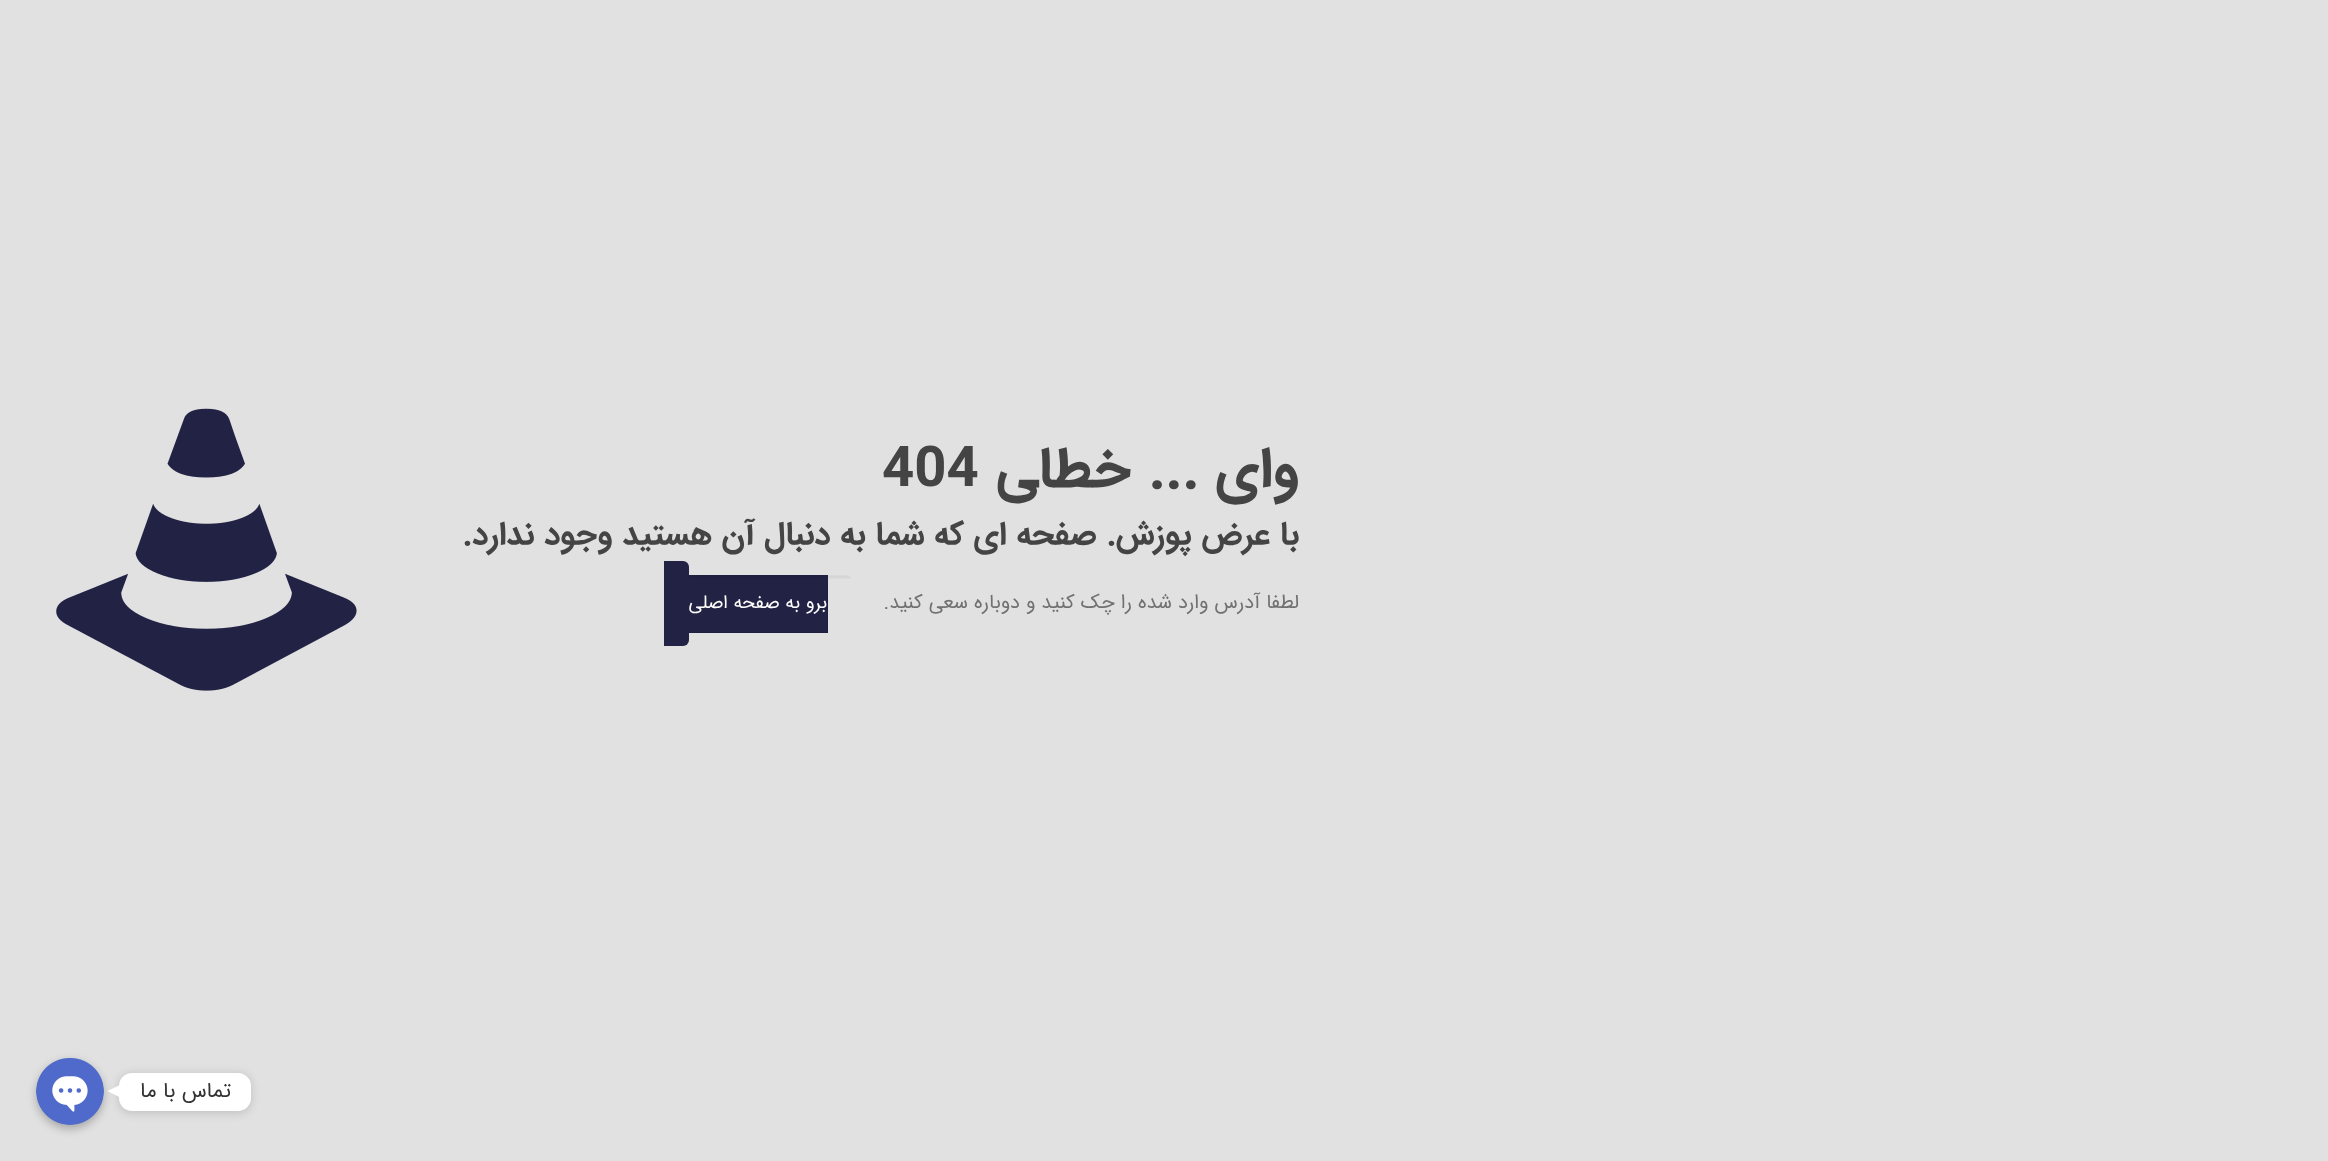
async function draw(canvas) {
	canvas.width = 2328;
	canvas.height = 1161;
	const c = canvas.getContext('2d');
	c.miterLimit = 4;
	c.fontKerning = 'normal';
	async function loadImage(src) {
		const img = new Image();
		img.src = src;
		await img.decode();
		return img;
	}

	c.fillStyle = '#e1e1e1';
	c.fillRect(0, 0, 2328, 1161);
	c.direction = 'rtl';
	c.font = 'bold 56.25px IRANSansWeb';
	c.fillStyle = '#444';
	c.fillText('وای ... خطا‍ی', 1299, 486);
	c.direction = 'ltr';
	c.fillText('404', 882, 486);
	c.direction = 'rtl';
	c.font = 'bold 32.5px IRANSansWeb';
	c.fillText('با عرض پوزش. صفحه ای که شما به دنبال آن هستید وجود ندارد.', 1299, 544);
	c.fillStyle = '#212244';
	c.fillRect(689, 575, 139, 58);
	c.drawImage(await loadImage('img1.png'), 689, 575, 162, 4);
	c.font = '20px IRANSansWeb';
	c.fillStyle = '#717171';
	c.fillText('لطفا آدرس وارد شده را چک کنید و دوباره سعی کنید.', 1299, 608);
	c.strokeStyle = '#00000008';
	c.strokeRect(664.5, 575.5, 163, 57);
	c.font = '18.75px IRANSansWeb';
	c.fillStyle = '#fff';
	c.fillText('برو به صفحه اصلی', 827, 608);
	c.fillStyle = '#212244';
	c.beginPath();
	c.roundRect(664, 561, 25, 85, [0, 6, 6, 0]);
	c.fill();
	c.drawImage(await loadImage('img2.png'), 56, 408, 301, 283);
	c.fillStyle = '#00000040';
	c.filter = 'blur(4px)';
	c.beginPath();
	c.roundRect(36, 1061, 68, 68, 34);
	c.fill();
	c.filter = 'none';
	c.drawImage(await loadImage('img3.png'), 36, 1058, 68, 67);
	c.fillStyle = '#00000026';
	c.filter = 'blur(5px)';
	c.beginPath();
	c.roundRect(119, 1074, 132, 39, 13);
	c.fill();
	c.filter = 'none';
	c.fillStyle = '#fff';
	c.beginPath();
	c.roundRect(119, 1073, 132, 38, 13);
	c.fill();
	c.font = '21.25px IRANSansWeb';
	c.fillStyle = '#333';
	c.fillText('تماس با ما', 231, 1097);
	c.fillStyle = '#fff';
	c.beginPath();
	c.moveTo(120, 1085);
	c.lineTo(120, 1097.5);
	c.lineTo(107.5, 1091);
	c.closePath();
	c.fill();
}

draw(document.querySelector('canvas'));
